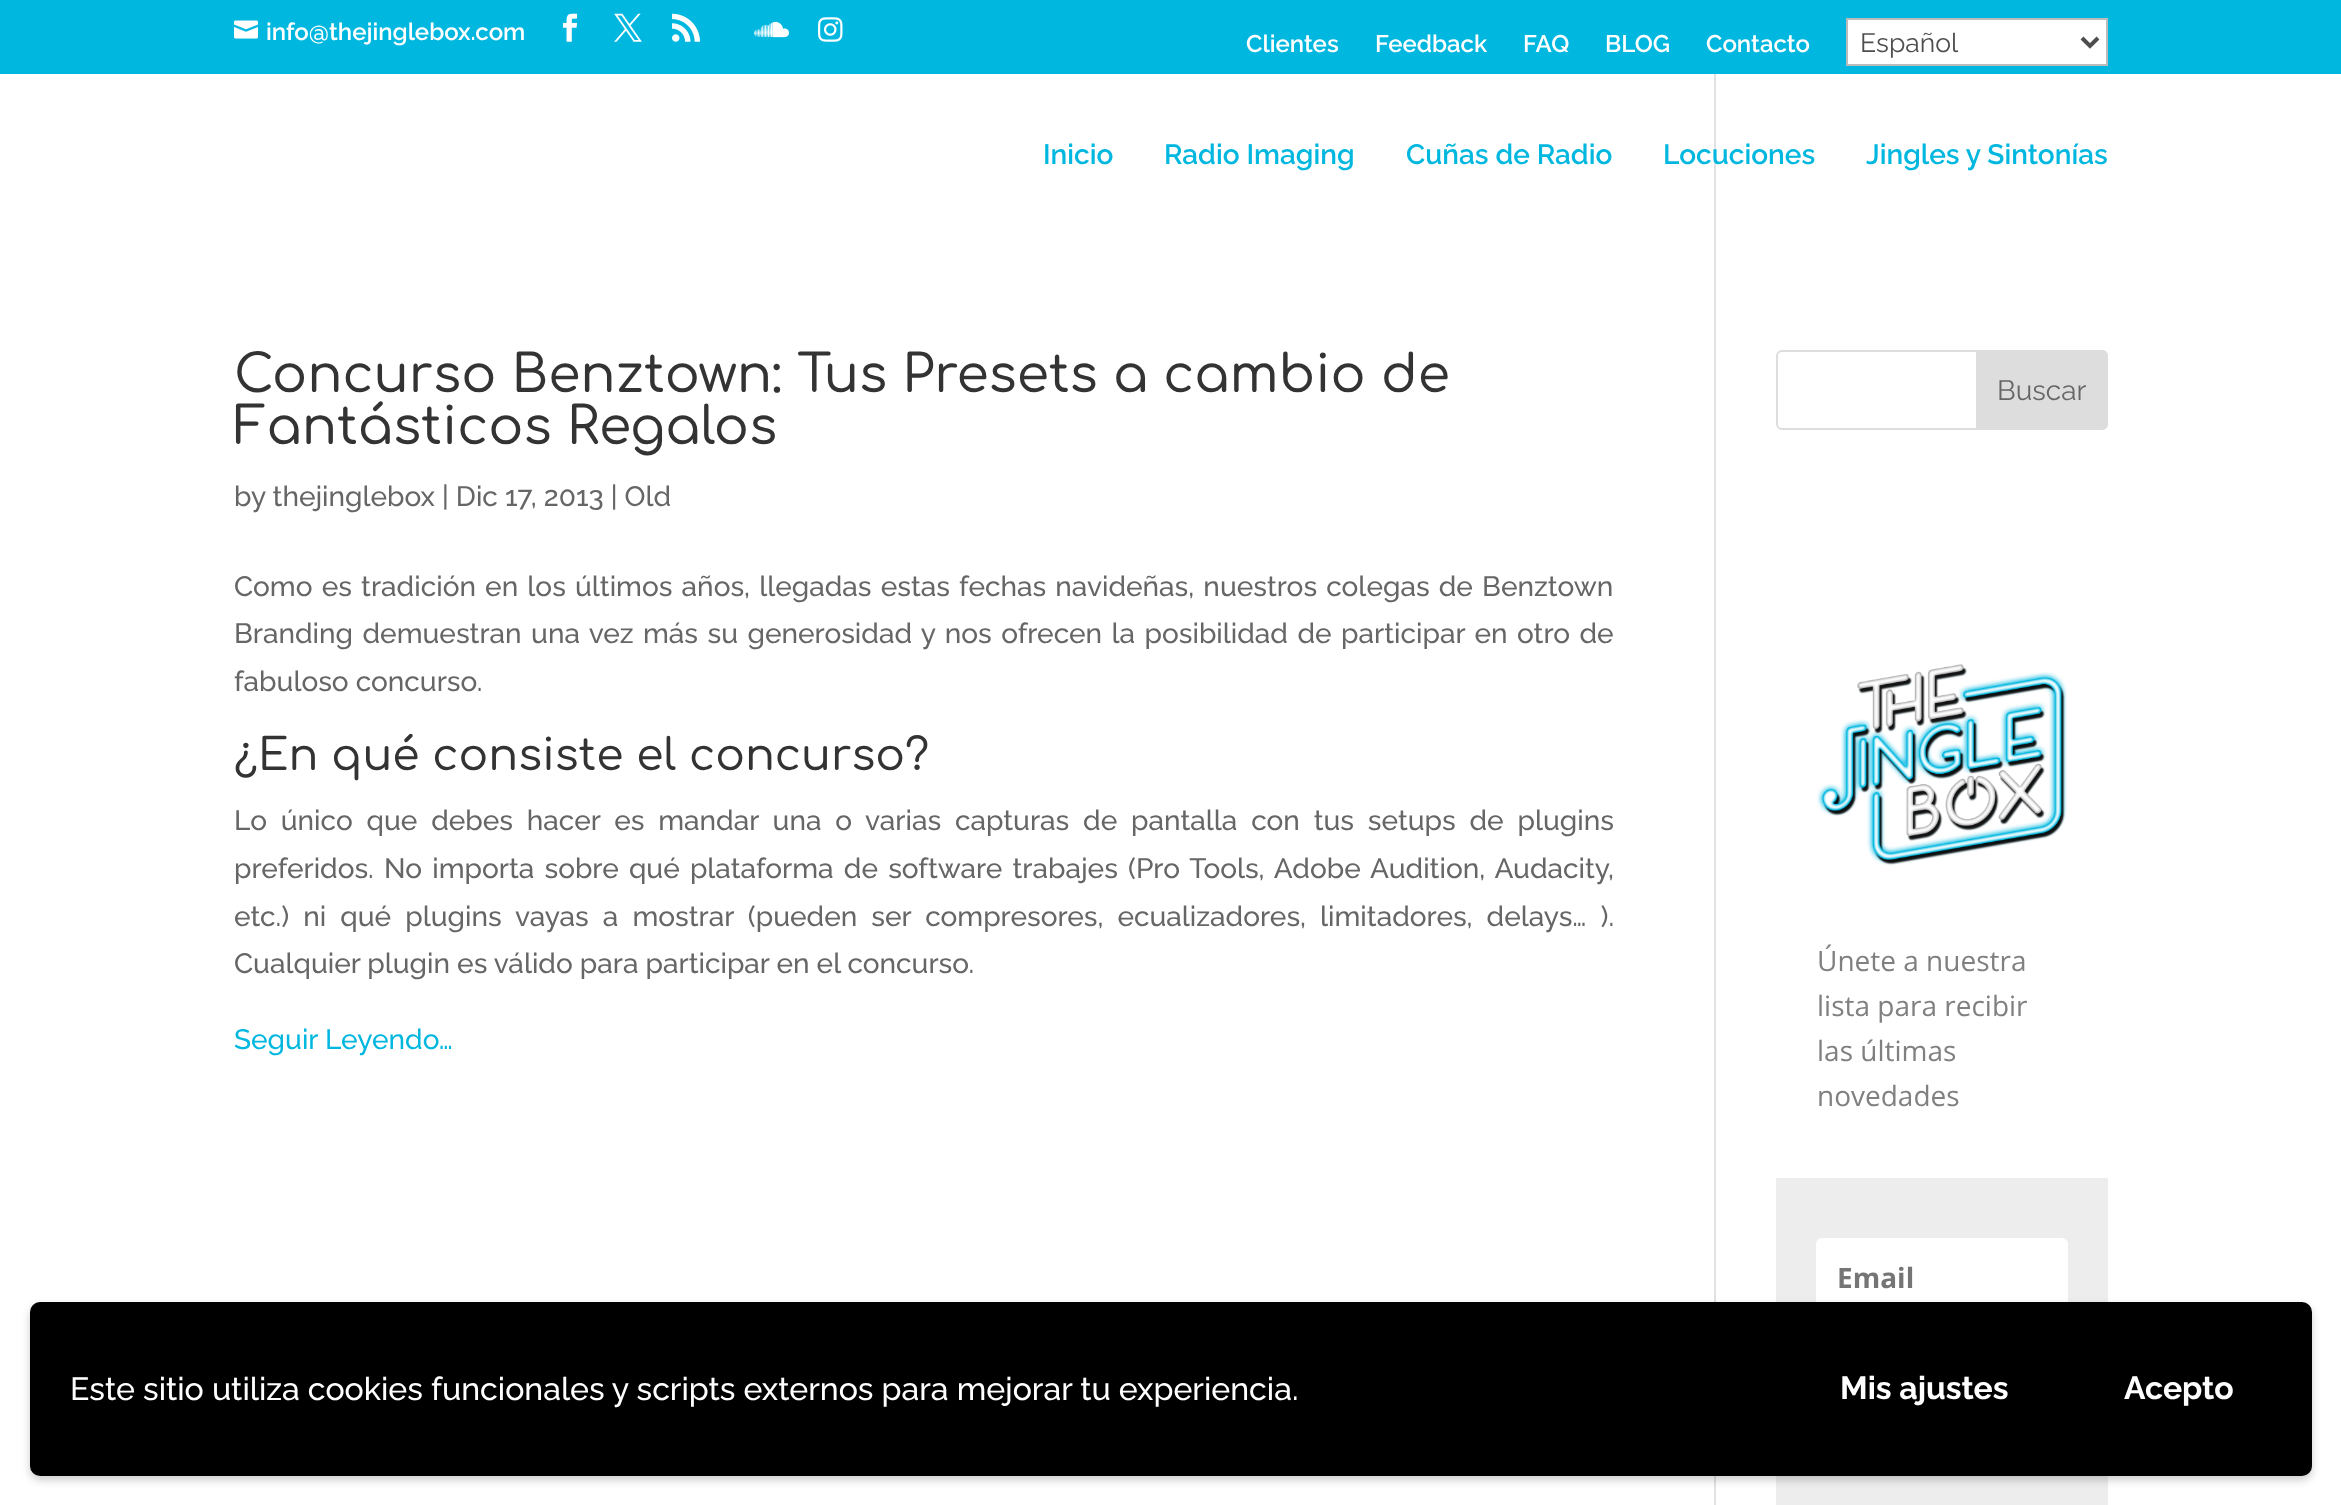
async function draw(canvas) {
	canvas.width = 2341;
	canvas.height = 1505;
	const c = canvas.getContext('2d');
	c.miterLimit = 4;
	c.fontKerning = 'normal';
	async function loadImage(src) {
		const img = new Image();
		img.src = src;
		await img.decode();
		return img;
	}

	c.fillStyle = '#fff';
	c.fillRect(0, 0, 2341, 1505);
	c.fillStyle = '#00b7df';
	c.fillRect(0, 0, 2341, 74);
	c.drawImage(await loadImage('img1.png'), 234, 20, 24, 19);
	c.font = '600 24px Raleway';
	c.fillStyle = '#fff';
	c.fillText('info@thejinglebox.com', 266, 40);
	c.drawImage(await loadImage('img2.png'), 563, 13, 15, 29);
	c.drawImage(await loadImage('img3.png'), 614, 13, 28, 29);
	c.drawImage(await loadImage('img4.png'), 672, 13, 28, 29);
	c.drawImage(await loadImage('img5.png'), 754, 21, 35, 17);
	c.drawImage(await loadImage('img6.png'), 818, 17, 25, 25);
	for (const [text, x, y] of [
		['Clientes', 1246, 52],
		['Feedback', 1375, 52],
		['FAQ', 1523, 52],
		['BLOG', 1605, 52],
		['Contacto', 1706, 52],
	]) {
		c.fillText(text, x, y);
	}
	c.beginPath();
	c.rect(1847, 19, 260, 46);
	c.fill();
	c.strokeStyle = '#bbb';
	c.lineWidth = 2;
	c.stroke();
	c.beginPath();
	c.moveTo(2082, 38);
	c.lineTo(2090, 46);
	c.lineTo(2098, 38);
	c.strokeStyle = '#4e4e4e';
	c.lineWidth = 4;
	c.stroke();
	c.font = '26.5px Raleway';
	c.fillStyle = '#4e4e4e';
	c.fillText('Español', 1860, 52);
	c.font = '600 28px Raleway';
	c.fillStyle = '#00b7df';
	for (const [text, x, y] of [
		['Inicio', 1043, 164],
		['Radio Imaging', 1164, 164],
		['Cuñas de Radio', 1406, 164],
	]) {
		c.fillText(text, x, y);
	}
	c.fillStyle = '#e2e2e2';
	c.fillRect(1714, 74, 2, 1431);
	c.fillStyle = '#00b7df';
	c.fillText('Locuciones', 1663, 164);
	c.fillText('Jingles y Sintonías', 1866, 164);
	c.font = '500 52px Comfortaa';
	c.fillStyle = '#333';
	c.fillText('Concurso Benztown: Tus Presets a cambio de', 234, 392);
	c.fillText('Fantásticos Regalos', 234, 444);
	c.font = '500 28px Raleway';
	c.fillStyle = '#666';
	c.fillText('by thejinglebox | Dic 17, 2013 | Old', 234, 506);
	c.wordSpacing = '2.1px';
	c.fillText('Como es tradición en los últimos años, llegadas estas fechas navideñas, nuestros colegas de Benztown', 234, 596);
	c.wordSpacing = '2.4px';
	c.fillText('Branding demuestran una vez más su generosidad y nos ofrecen la posibilidad de participar en otro de', 234, 643);
	c.wordSpacing = '0px';
	c.fillText('fabuloso concurso.', 234, 691);
	c.font = '500 44px Comfortaa';
	c.fillStyle = '#333';
	c.fillText('¿En qué consiste el concurso?', 234, 770);
	c.wordSpacing = '6.75px';
	c.font = '500 28px Raleway';
	c.fillStyle = '#666';
	c.fillText('Lo único que debes hacer es mandar una o varias capturas de pantalla con tus setups de plugins', 234, 830);
	c.wordSpacing = '3.1px';
	c.fillText('preferidos. No importa sobre qué plataforma de software trabajes (Pro Tools, Adobe Audition, Audacity,', 234, 878);
	c.wordSpacing = '7px';
	c.fillText('etc.) ni qué plugins vayas a mostrar (pueden ser compresores, ecualizadores, limitadores, delays… ).', 234, 926);
	c.wordSpacing = '0px';
	c.fillText('Cualquier plugin es válido para participar en el concurso.', 234, 973);
	c.fillStyle = '#00b7df';
	c.fillText('Seguir Leyendo…', 234, 1049);
	c.beginPath();
	c.roundRect(1777, 351, 330, 78, 5);
	c.strokeStyle = '#ddd';
	c.lineWidth = 2;
	c.stroke();
	c.fillStyle = '#ddd';
	c.beginPath();
	c.roundRect(1977, 351, 130, 78, [0, 5, 5, 0]);
	c.fill();
	c.stroke();
	c.font = '28px Raleway';
	c.fillStyle = '#666';
	c.fillText('Buscar', 1997, 400);
	c.drawImage(await loadImage('img7.png'), 1817, 664, 250, 201);
	c.font = '28px Open Sans';
	c.fillStyle = '#808080';
	for (const [text, x, y] of [
		['Únete a nuestra', 1817, 971],
		['lista para recibir', 1817, 1016],
		['las últimas', 1817, 1061],
		['novedades', 1817, 1106],
	]) {
		c.fillText(text, x, y);
	}
	c.fillStyle = '#ededed';
	c.fillRect(1776, 1178, 332, 327);
	c.fillStyle = '#fff';
	c.beginPath();
	c.roundRect(1816, 1238, 252, 78, 6);
	c.fill();
	c.font = 'bold 28px Open Sans';
	c.fillStyle = '#757575';
	c.fillText('Email', 1837, 1288);
	c.fillStyle = '#00000033';
	c.filter = 'blur(4px)';
	c.beginPath();
	c.roundRect(30, 1306, 2282, 174, 10);
	c.fill();
	c.filter = 'none';
	c.fillStyle = '#000';
	c.beginPath();
	c.roundRect(30, 1302, 2282, 174, 10);
	c.fill();
	c.font = '500 32px Raleway';
	c.fillStyle = '#fff';
	c.fillText('Este sitio utiliza cookies funcionales y scripts externos para mejorar tu experiencia.', 70, 1400);
	c.font = 'bold 32px Raleway';
	c.fillText('Mis ajustes', 1840, 1399);
	c.fillText('Acepto', 2124, 1399);
}

draw(document.querySelector('canvas'));
